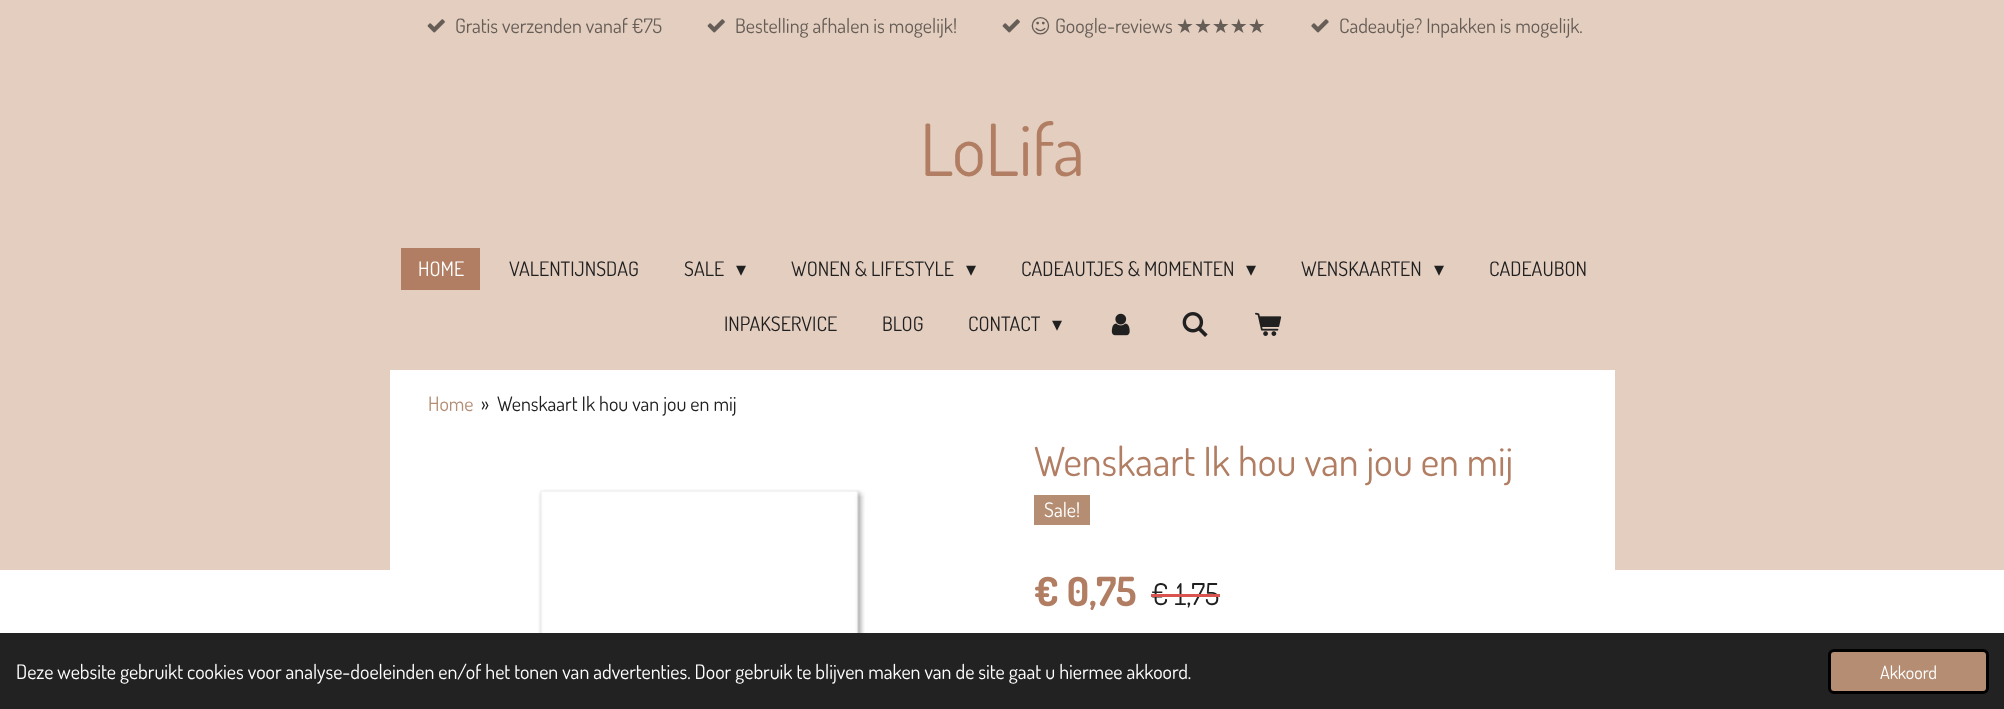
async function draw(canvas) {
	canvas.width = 2004;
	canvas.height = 709;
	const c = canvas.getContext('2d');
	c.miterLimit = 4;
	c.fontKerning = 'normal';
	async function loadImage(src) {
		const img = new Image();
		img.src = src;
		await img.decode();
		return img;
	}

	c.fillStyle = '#fff';
	c.fillRect(0, 0, 2004, 709);
	c.fillStyle = '#e3cec0';
	c.fillRect(0, 0, 2004, 570);
	c.drawImage(await loadImage('img1.png'), 427, 19, 18, 14);
	c.font = '20px Dosis';
	c.fillStyle = '#665d56';
	c.fillText('Gratis verzenden vanaf €75', 455, 33);
	c.drawImage(await loadImage('img1.png'), 707, 19, 18, 14);
	c.fillText('Bestelling afhalen is mogelijk!', 735, 33);
	c.drawImage(await loadImage('img1.png'), 1002, 19, 18, 14);
	c.font = '20px DejaVu Sans';
	c.fillText('☺︎', 1030, 33);
	c.font = '20px Dosis';
	c.fillText('Google-reviews', 1055, 33);
	c.font = '20px DejaVu Sans';
	c.fillText('★★★★★', 1176, 33);
	c.drawImage(await loadImage('img2.png'), 1311, 19, 18, 14);
	c.font = '20px Dosis';
	c.fillText('Cadeautje? Inpakken is mogelijk.', 1339, 33);
	c.font = '72px Dosis';
	c.fillStyle = '#b17e63';
	c.fillText('LoLifa', 920, 176);
	c.fillRect(401, 248, 79, 42);
	c.font = '20px Dosis';
	c.fillStyle = '#fff';
	c.fillText('HOME', 418, 276);
	c.fillStyle = '#202020';
	c.fillText('VALENTIJNSDAG', 509, 276);
	c.fillText('SALE', 684, 276);
	c.font = '20px DejaVu Sans';
	c.fillText('▾', 736, 276);
	c.font = '20px Dosis';
	c.fillText('WONEN & LIFESTYLE', 791, 276);
	c.font = '20px DejaVu Sans';
	c.fillText('▾', 966, 276);
	c.font = '20px Dosis';
	c.fillText('CADEAUTJES & MOMENTEN', 1021, 276);
	c.font = '20px DejaVu Sans';
	c.fillText('▾', 1246, 276);
	c.font = '20px Dosis';
	c.fillText('WENSKAARTEN', 1301, 276);
	c.font = '20px DejaVu Sans';
	c.fillText('▾', 1434, 276);
	c.font = '20px Dosis';
	for (const [text, x, y] of [
		['CADEAUBON', 1489, 276],
		['INPAKSERVICE', 724, 331],
		['BLOG', 882, 331],
		['CONTACT', 968, 331],
	]) {
		c.fillText(text, x, y);
	}
	c.font = '20px DejaVu Sans';
	c.fillText('▾', 1052, 331);
	c.drawImage(await loadImage('img3.png'), 1111, 313, 19, 23);
	c.drawImage(await loadImage('img4.png'), 1182, 312, 26, 25);
	c.drawImage(await loadImage('img5.png'), 1255, 312, 27, 24);
	c.fillStyle = '#fff';
	c.fillRect(390, 370, 1225, 200);
	c.font = '20px Dosis';
	c.fillStyle = '#b48d73';
	c.fillText('Home', 428, 411);
	c.fillStyle = '#202020';
	c.fillText('»', 481, 411);
	c.fillText('Wenskaart Ik hou van jou en mij', 497, 411);
	c.font = '40px Dosis';
	c.fillStyle = '#b17e63';
	c.fillText('Wenskaart Ik hou van jou en mij', 1034, 476);
	c.fillStyle = '#b48d73';
	c.fillRect(1034, 495, 56, 30);
	c.font = '20px Dosis';
	c.fillStyle = '#fff';
	c.fillText('Sale!', 1044, 517);
	c.drawImage(await loadImage('img6.png'), 538, 489, 327, 144);
	c.font = 'bold 40px Dosis';
	c.fillStyle = '#b17e63';
	c.fillText('€ 0,75', 1034, 606);
	c.font = '30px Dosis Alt';
	c.fillStyle = '#202020';
	c.fillText('€ 1,75', 1151, 605);
	c.fillStyle = '#d9534f';
	c.fillRect(1151, 594, 69, 3);
	c.fillStyle = '#222';
	c.fillRect(0, 633, 2004, 76);
	c.font = '20px Dosis';
	c.fillStyle = '#fff';
	c.fillText('Deze website gebruikt cookies voor analyse-doeleinden en/of het tonen van advertenties. Door gebruik te blijven maken van de site gaat u hiermee akkoord.', 16, 679);
	c.fillStyle = '#b48d73';
	c.beginPath();
	c.roundRect(1829.5, 650.5, 158, 42, 4.5);
	c.fill();
	c.strokeStyle = '#000';
	c.lineWidth = 3;
	c.stroke();
	c.font = '18px Dosis';
	c.fillStyle = '#fff';
	c.fillText('Akkoord', 1880, 679);
}

draw(document.querySelector('canvas'));
